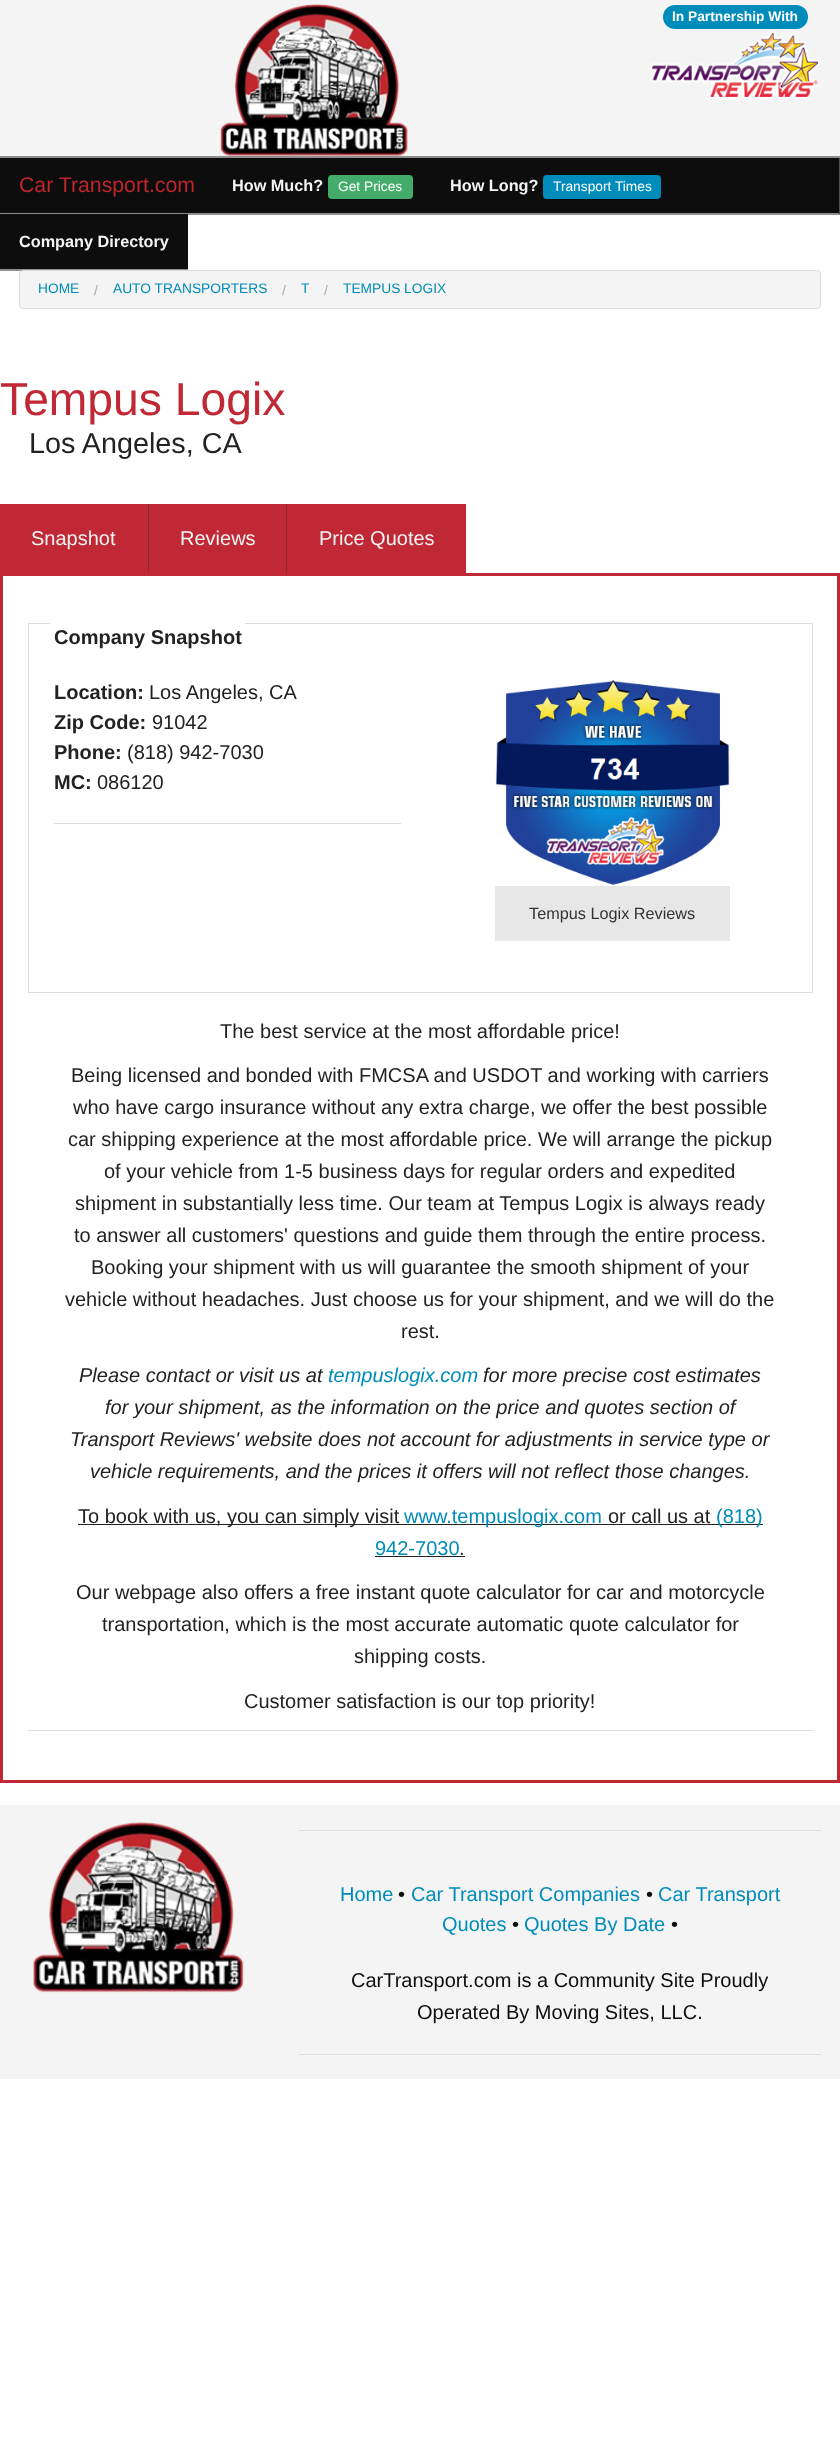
async function draw(canvas) {
	canvas.width = 840;
	canvas.height = 2450;
	const c = canvas.getContext('2d');
	c.miterLimit = 4;
	c.fontKerning = 'normal';
	async function loadImage(src) {
		const img = new Image();
		img.src = src;
		await img.decode();
		return img;
	}

	c.fillStyle = '#fff';
	c.fillRect(0, 0, 840, 2450);
	c.fillStyle = '#f3f4f3';
	c.fillRect(0, 0, 840, 156);
	c.drawImage(await loadImage('img1.png'), 220, 4, 188, 152);
	c.fillStyle = '#008cba';
	c.beginPath();
	c.roundRect(663, 5, 145, 24, 12);
	c.fill();
	c.font = 'bold 13.75px Liberation Sans';
	c.fillStyle = '#fff';
	c.fillText('In Partnership With', 672, 21);
	c.drawImage(await loadImage('img2.png'), 650, 31, 170, 69);
	for (const [x, y, w, h, color] of [
		[0, 156, 840, 2, '#8e8e8e'],
		[188, 214, 652, 1, '#8e8e8e'],
		[0, 158, 839, 55, '#0d0d0d'],
		[0, 213, 840, 1, '#8e8e8e'],
	]) {
		c.fillStyle = color;
		c.fillRect(x, y, w, h);
	}
	c.font = '21.25px Liberation Sans';
	c.fillStyle = '#be262b';
	c.fillText('Car Transport.com', 19, 192);
	c.font = 'bold 16.25px Liberation Sans';
	c.fillStyle = '#f3f4f3';
	c.fillText('How Much?', 232, 191);
	c.fillStyle = '#43ac6a';
	c.beginPath();
	c.roundRect(328, 175, 85, 24, 4);
	c.fill();
	c.font = '13.75px Liberation Sans';
	c.fillStyle = '#fff';
	c.fillText('Get Prices', 338, 191);
	c.font = 'bold 16.25px Liberation Sans';
	c.fillStyle = '#f3f4f3';
	c.fillText('How Long?', 450, 191);
	c.fillStyle = '#008cba';
	c.beginPath();
	c.roundRect(543, 175, 118, 24, 4);
	c.fill();
	c.font = '13.75px Liberation Sans';
	c.fillStyle = '#fff';
	c.fillText('Transport Times', 553, 191);
	c.fillStyle = '#8e8e8e';
	c.beginPath();
	c.moveTo(0, 270);
	c.lineTo(0, 271);
	c.lineTo(188, 271);
	c.lineTo(188, 215);
	c.lineTo(188, 270);
	c.closePath();
	c.fill();
	c.fillStyle = '#0d0d0d';
	c.fillRect(0, 214, 188, 55);
	c.fillStyle = '#8e8e8e';
	c.fillRect(0, 269, 188, 1);
	c.font = 'bold 16.25px Liberation Sans';
	c.fillStyle = '#f3f4f3';
	c.fillText('Company Directory', 19, 247);
	c.fillStyle = '#4e4e4e';
	c.fillRect(839, 158, 1, 56);
	c.fillStyle = '#f4f4f4';
	c.beginPath();
	c.roundRect(19.5, 270.5, 801, 38, 3.5);
	c.fill();
	c.strokeStyle = '#dcdcdc';
	c.stroke();
	c.font = '13.75px Liberation Sans';
	c.fillStyle = '#008cba';
	c.fillText('HOME', 38, 293);
	c.fillStyle = '#aaa';
	c.fillText('/', 94, 295);
	c.fillStyle = '#008cba';
	c.fillText('AUTO TRANSPORTERS', 113, 293);
	c.fillStyle = '#aaa';
	c.fillText('/', 282, 295);
	c.fillStyle = '#008cba';
	c.fillText('T', 301, 293);
	c.fillStyle = '#aaa';
	c.fillText('/', 324, 295);
	c.fillStyle = '#008cba';
	c.fillText('TEMPUS LOGIX', 343, 293);
	c.font = '46.25px Liberation Sans';
	c.fillStyle = '#bf2834';
	c.fillText('Tempus Logix', 0, 415);
	c.font = '28.75px Liberation Sans';
	c.fillStyle = '#222';
	c.fillText('Los Angeles, CA', 29, 453);
	c.fillStyle = '#bf2834';
	c.fillRect(0, 504, 148, 69);
	c.fillStyle = '#8f2634';
	c.fillRect(148, 504, 1, 69);
	c.font = '20px Liberation Sans';
	c.fillStyle = '#f3f4f3';
	c.fillText('Snapshot', 31, 545);
	c.fillStyle = '#bf2834';
	c.fillRect(149, 504, 137, 69);
	c.fillStyle = '#f3f4f3';
	c.fillText('Reviews', 180, 545);
	c.fillStyle = '#bf2834';
	c.fillRect(287, 504, 179, 69);
	c.fillStyle = '#8f2634';
	c.fillRect(286, 504, 1, 69);
	c.fillStyle = '#f3f4f3';
	c.fillText('Price Quotes', 319, 545);
	c.strokeStyle = '#bf2834';
	c.lineWidth = 3;
	c.strokeRect(1.5, 574.5, 837, 1207);
	c.strokeStyle = '#ddd';
	c.lineWidth = 1;
	c.strokeRect(28.5, 623.5, 784, 369);
	c.fillStyle = '#fff';
	c.fillRect(50, 623, 195, 1);
	c.font = 'bold 20px Liberation Sans';
	c.fillStyle = '#222';
	c.fillText('Company Snapshot', 54, 644);
	c.fillText('Location:', 54, 699);
	c.font = '20px Liberation Sans';
	c.fillText('Los Angeles, CA', 149, 699);
	c.font = 'bold 20px Liberation Sans';
	c.fillText('Zip Code:', 54, 729);
	c.font = '20px Liberation Sans';
	c.fillText('91042', 152, 729);
	c.font = 'bold 20px Liberation Sans';
	c.fillText('Phone:', 54, 759);
	c.font = '20px Liberation Sans';
	c.fillText('(818) 942-7030', 127, 759);
	c.font = 'bold 20px Liberation Sans';
	c.fillText('MC:', 54, 789);
	c.font = '20px Liberation Sans';
	c.fillText('086120', 97, 789);
	c.fillStyle = '#ddd';
	c.fillRect(54, 823, 347, 1);
	c.drawImage(await loadImage('img3.png'), 495, 679, 235, 206);
	c.fillStyle = '#e7e7e7';
	c.fillRect(495, 886, 235, 55);
	c.font = '16.25px Liberation Sans';
	c.fillStyle = '#333';
	c.fillText('Tempus Logix Reviews', 529, 919);
	c.font = '20px Liberation Sans';
	c.fillStyle = '#222';
	for (const [text, x, y] of [
		['The best service at the most affordable price!', 220, 1038],
		['Being licensed and bonded with FMCSA and USDOT and working with carriers', 71, 1082],
		['who have cargo insurance without any extra charge, we offer the best possible', 73, 1114],
		['car shipping experience at the most affordable price. We will arrange the pickup', 68, 1146],
		['of your vehicle from 1-5 business days for regular orders and expedited', 104, 1178],
		['shipment in substantially less time. Our team at Tempus Logix is always ready', 75, 1210],
		['to answer all customers\' questions and guide them through the entire process.', 74, 1242],
		['Booking your shipment with us will guarantee the smooth shipment of your', 91, 1274],
		['vehicle without headaches. Just choose us for your shipment, and we will do the', 65, 1306],
		['rest.', 401, 1338],
	]) {
		c.fillText(text, x, y);
	}
	c.font = 'italic 20px Liberation Sans';
	c.fillText('Please contact or visit us at', 79, 1382);
	c.fillStyle = '#008cba';
	c.fillText('tempuslogix.com', 328, 1382);
	c.fillStyle = '#222';
	for (const [text, x, y] of [
		['for more precise cost estimates', 483, 1382],
		['for your shipment, as the information on the price and quotes section of', 105, 1414],
		['Transport Reviews\' website does not account for adjustments in service type or', 70, 1446],
		['vehicle requirements, and the prices it offers will not reflect those changes.', 90, 1478],
	]) {
		c.fillText(text, x, y);
	}
	c.fillRect(78, 1524, 685, 1);
	c.font = '20px Liberation Sans';
	c.fillText('To book with us, you can simply visit', 78, 1523);
	c.fillStyle = '#008cba';
	c.fillText('www.tempuslogix.com', 404, 1523);
	c.fillStyle = '#222';
	c.fillText('or call us at', 608, 1523);
	c.fillStyle = '#008cba';
	c.fillText('(818)', 716, 1523);
	c.fillText('942-7030', 375, 1555);
	c.fillStyle = '#222';
	c.fillText('.', 459, 1555);
	c.fillRect(375, 1556, 90, 1);
	for (const [text, x, y] of [
		['Our webpage also offers a free instant quote calculator for car and motorcycle', 76, 1599],
		['transportation, which is the most accurate automatic quote calculator for', 102, 1631],
		['shipping costs.', 354, 1663],
		['Customer satisfaction is our top priority!', 244, 1708],
	]) {
		c.fillText(text, x, y);
	}
	c.fillStyle = '#ddd';
	c.fillRect(28, 1730, 785, 1);
	c.fillStyle = '#f3f4f3';
	c.fillRect(0, 1805, 840, 274);
	c.drawImage(await loadImage('img4.png'), 33, 1822, 211, 171);
	c.fillStyle = '#ddd';
	c.fillRect(299, 1830, 522, 1);
	c.fillStyle = '#008cba';
	c.fillText('Home', 340, 1901);
	c.fillStyle = '#0d0d0d';
	c.fillText('•', 398, 1901);
	c.fillStyle = '#008cba';
	c.fillText('Car Transport Companies', 411, 1901);
	c.fillStyle = '#0d0d0d';
	c.fillText('•', 646, 1901);
	c.fillStyle = '#008cba';
	c.fillText('Car Transport', 658, 1901);
	c.fillText('Quotes', 442, 1931);
	c.fillStyle = '#0d0d0d';
	c.fillText('•', 512, 1931);
	c.fillStyle = '#008cba';
	c.fillText('Quotes By Date', 524, 1931);
	c.fillStyle = '#0d0d0d';
	for (const [text, x, y] of [
		['•', 671, 1931],
		['CarTransport.com is a Community Site Proudly', 351, 1987],
		['Operated By Moving Sites, LLC.', 417, 2019],
	]) {
		c.fillText(text, x, y);
	}
	c.fillStyle = '#ddd';
	c.fillRect(299, 2054, 522, 1);
}

draw(document.querySelector('canvas'));
